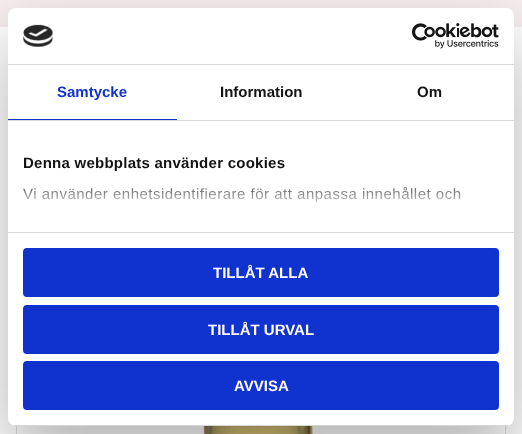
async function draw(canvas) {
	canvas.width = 522;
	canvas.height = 434;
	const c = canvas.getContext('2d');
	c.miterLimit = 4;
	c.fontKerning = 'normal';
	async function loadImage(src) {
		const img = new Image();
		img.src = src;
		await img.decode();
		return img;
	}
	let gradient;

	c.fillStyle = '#fff';
	c.fillRect(0, 0, 522, 434);
	c.fillStyle = '#f6eeee';
	c.fillRect(0, 0, 522, 27);
	c.strokeStyle = '#e0dede';
	c.strokeRect(16.5, 205.5, 489, 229);
	c.drawImage(await loadImage('img1.png'), 17, 426, 488, 8);
	c.fillStyle = '#0000004d';
	c.filter = 'blur(34px)';
	c.beginPath();
	c.roundRect(8, 40, 506, 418, 8);
	c.fill();
	c.filter = 'none';
	c.fillStyle = '#fff';
	c.beginPath();
	c.roundRect(8, 8, 506, 418, 8);
	c.fill();
	c.fillStyle = '#d6d6d6';
	c.fillRect(8, 64, 506, 1);
	c.drawImage(await loadImage('img2.png'), 23, 24, 30, 23);
	c.drawImage(await loadImage('img3.png'), 412, 23, 87, 26);
	c.fillRect(8, 120, 506, 1);
	c.fillStyle = '#1032cf';
	c.fillRect(8, 119, 169, 1);
	c.font = 'bold 15px Liberation Sans';
	c.fillText('Samtycke', 57, 97);
	c.fillStyle = '#141414';
	c.fillText('Information', 220, 97);
	c.fillText('Om', 417, 97);
	c.fillStyle = '#d6d6d6';
	c.fillRect(8, 232, 506, 1);
	c.letterSpacing = '0.25px';
	c.fillStyle = '#141414';
	c.fillText('Denna webbplats använder cookies', 23, 168);
	c.letterSpacing = '0.5px';
	c.font = '15px Liberation Sans';
	c.fillText('Vi använder enhetsidentifierare för att anpassa innehållet och', 23, 199);
	gradient = c.createLinearGradient(255, 232, 255, 176);
	gradient.addColorStop(0, '#fff');
	gradient.addColorStop(0.5, '#ffffffcc');
	gradient.addColorStop(1, '#ffffff00');
	c.fillStyle = gradient;
	c.fillRect(23, 187, 438, 16);
	c.save();
	c.beginPath();
	c.roundRect(8, 8, 506, 418, 8);
	c.clip();
	c.fillStyle = '#d6d6d6';
	c.fillRect(8, 425, 506, 1);
	c.restore();
	c.fillStyle = '#1032cf';
	c.beginPath();
	c.roundRect(24, 249, 474, 47, 3);
	c.fill();
	c.strokeStyle = '#1032cf';
	c.lineWidth = 2;
	c.stroke();
	c.letterSpacing = '0px';
	c.font = 'bold 15px Liberation Sans';
	c.fillStyle = '#fff';
	c.fillText('TILLÅT ALLA', 213, 278);
	c.fillStyle = '#1032cf';
	c.beginPath();
	c.roundRect(24, 306, 474, 47, 3);
	c.fill();
	c.stroke();
	c.fillStyle = '#fff';
	c.fillText('TILLÅT URVAL', 208, 335);
	c.fillStyle = '#1032cf';
	c.beginPath();
	c.roundRect(24, 362, 474, 47, 3);
	c.fill();
	c.stroke();
	c.fillStyle = '#fff';
	c.fillText('AVVISA', 234, 391);
}

draw(document.querySelector('canvas'));
